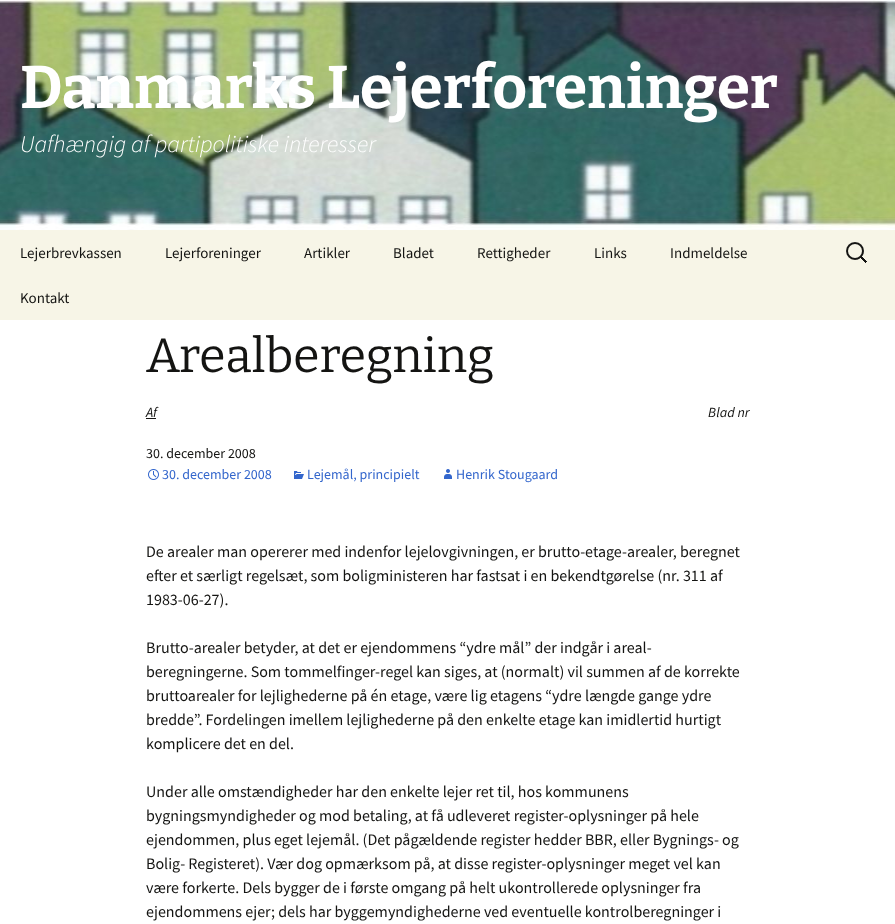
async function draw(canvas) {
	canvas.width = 895;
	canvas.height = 924;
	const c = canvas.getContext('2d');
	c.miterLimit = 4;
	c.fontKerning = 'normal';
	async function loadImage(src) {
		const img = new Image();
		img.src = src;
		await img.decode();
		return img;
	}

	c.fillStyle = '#fff';
	c.fillRect(0, 0, 895, 924);
	c.drawImage(await loadImage('img1.png'), 0, 0, 895, 230);
	c.font = '100 60px Bitter';
	c.fillText('Danmarks Lejerforeninger', 20, 108);
	c.font = 'italic 300 24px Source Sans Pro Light';
	c.fillText('Uafhængig af partipolitiske interesser', 20, 152);
	c.fillStyle = '#f7f5e7';
	c.fillRect(0, 230, 895, 90);
	c.font = '15px Source Sans Pro';
	c.fillStyle = '#141412';
	for (const [text, x, y] of [
		['Lejerbrevkassen', 20, 258],
		['Lejerforeninger', 165, 258],
		['Artikler', 304, 258],
		['Bladet', 393, 258],
		['Rettigheder', 477, 258],
		['Links', 594, 258],
		['Indmeldelse', 670, 258],
		['Kontakt', 20, 303],
	]) {
		c.fillText(text, x, y);
	}
	c.drawImage(await loadImage('img2.png'), 846, 242, 21, 21);
	c.font = '100 48px "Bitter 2"';
	c.fillText('Arealberegning', 146, 372);
	c.font = 'italic 14px Source Sans Pro';
	c.fillText('Af', 146, 417);
	c.fillRect(146, 418, 10, 1);
	c.fillText('Blad nr', 708, 417);
	c.font = '14px Source Sans Pro';
	c.fillText('30. december 2008', 146, 458);
	c.drawImage(await loadImage('img3.png'), 148, 469, 11, 11);
	c.fillStyle = '#36c';
	c.fillText('30. december 2008', 162, 479);
	c.drawImage(await loadImage('img4.png'), 294, 471, 10, 8);
	c.fillText('Lejemål, principielt', 307, 479);
	c.drawImage(await loadImage('img5.png'), 444, 469, 8, 10);
	c.fillText('Henrik Stougaard', 456, 479);
	c.font = '16px Source Sans Pro';
	c.fillStyle = '#141412';
	for (const [text, x, y] of [
		['De arealer man opererer med indenfor lejelovgivningen, er brutto-etage-arealer, beregnet', 146, 557],
		['efter et særligt regelsæt, som boligministeren har fastsat i en bekendtgørelse (nr. 311 af', 146, 581],
		['1983-06-27).', 146, 605],
		['Brutto-arealer betyder, at det er ejendommens “ydre mål” der indgår i areal-', 146, 653],
		['beregningerne. Som tommelfinger-regel kan siges, at (normalt) vil summen af de korrekte', 146, 677],
		['bruttoarealer for lejlighederne på én etage, være lig etagens “ydre længde gange ydre', 146, 701],
		['bredde”. Fordelingen imellem lejlighederne på den enkelte etage kan imidlertid hurtigt', 146, 725],
		['komplicere det en del.', 146, 749],
		['Under alle omstændigheder har den enkelte lejer ret til, hos kommunens', 146, 797],
		['bygningsmyndigheder og mod betaling, at få udleveret register-oplysninger på hele', 146, 821],
		['ejendommen, plus eget lejemål. (Det pågældende register hedder BBR, eller Bygnings- og', 146, 845],
		['Bolig- Registeret). Vær dog opmærksom på, at disse register-oplysninger meget vel kan', 146, 869],
		['være forkerte. Dels bygger de i første omgang på helt ukontrollerede oplysninger fra', 146, 893],
		['ejendommens ejer; dels har byggemyndighederne ved eventuelle kontrolberegninger i', 146, 917],
	]) {
		c.fillText(text, x, y);
	}
}

draw(document.querySelector('canvas'));
